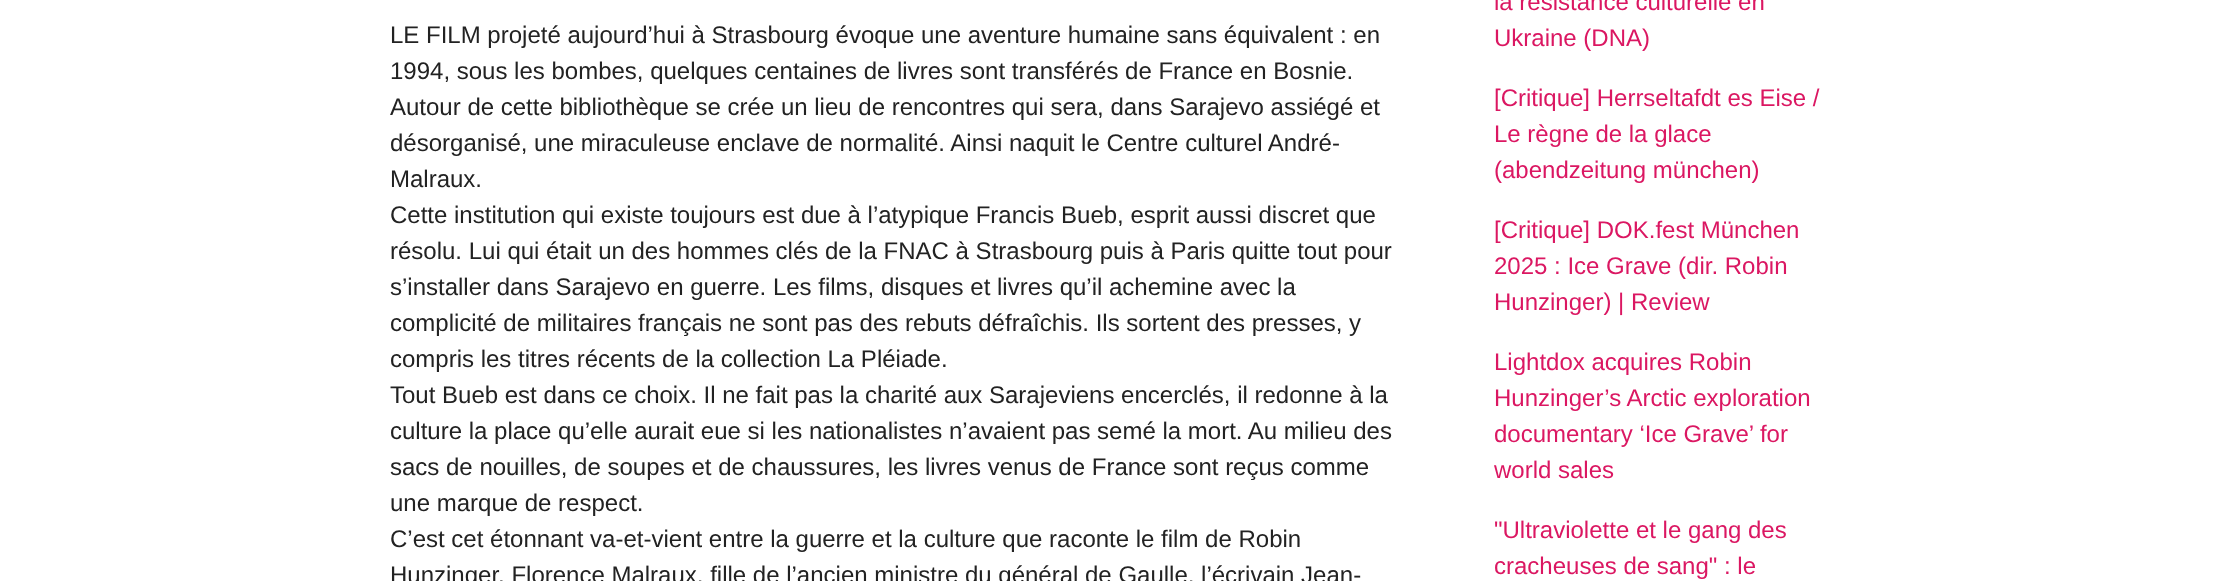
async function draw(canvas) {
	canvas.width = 2220;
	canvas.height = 581;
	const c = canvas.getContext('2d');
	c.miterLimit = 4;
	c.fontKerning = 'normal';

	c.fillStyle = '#fff';
	c.fillRect(0, 0, 2220, 581);
	c.font = '24px Liberation Sans';
	c.fillStyle = '#222';
	for (const [text, x, y] of [
		['LE FILM projeté aujourd’hui à Strasbourg évoque une aventure humaine sans équivalent : en', 390, 43],
		['1994, sous les bombes, quelques centaines de livres sont transférés de France en Bosnie.', 390, 79],
		['Autour de cette bibliothèque se crée un lieu de rencontres qui sera, dans Sarajevo assiégé et', 390, 115],
		['désorganisé, une miraculeuse enclave de normalité. Ainsi naquit le Centre culturel André-', 390, 151],
		['Malraux.', 390, 187],
		['Cette institution qui existe toujours est due à l’atypique Francis Bueb, esprit aussi discret que', 390, 223],
		['résolu. Lui qui était un des hommes clés de la FNAC à Strasbourg puis à Paris quitte tout pour', 390, 259],
		['s’installer dans Sarajevo en guerre. Les films, disques et livres qu’il achemine avec la', 390, 295],
		['complicité de militaires français ne sont pas des rebuts défraîchis. Ils sortent des presses, y', 390, 331],
		['compris les titres récents de la collection La Pléiade.', 390, 367],
		['Tout Bueb est dans ce choix. Il ne fait pas la charité aux Sarajeviens encerclés, il redonne à la', 390, 403],
		['culture la place qu’elle aurait eue si les nationalistes n’avaient pas semé la mort. Au milieu des', 390, 439],
		['sacs de nouilles, de soupes et de chaussures, les livres venus de France sont reçus comme', 390, 475],
		['une marque de respect.', 390, 511],
		['C’est cet étonnant va-et-vient entre la guerre et la culture que raconte le film de Robin', 390, 547],
		['Hunzinger. Florence Malraux, fille de l’ancien ministre du général de Gaulle, l’écrivain Jean-', 390, 583],
	]) {
		c.fillText(text, x, y);
	}
	c.fillStyle = '#db1762';
	for (const [text, x, y] of [
		['la résistance culturelle en', 1494, 10],
		['Ukraine (DNA)', 1494, 46],
		['[Critique] Herrseltafdt es Eise /', 1494, 106],
		['Le règne de la glace', 1494, 142],
		['(abendzeitung münchen)', 1494, 178],
		['[Critique] DOK.fest München', 1494, 238],
		['2025 : Ice Grave (dir. Robin', 1494, 274],
		['Hunzinger) | Review', 1494, 310],
		['Lightdox acquires Robin', 1494, 370],
		['Hunzinger’s Arctic exploration', 1494, 406],
		['documentary ‘Ice Grave’ for', 1494, 442],
		['world sales', 1494, 478],
		['"Ultraviolette et le gang des', 1494, 538],
		['cracheuses de sang" : le', 1494, 574],
	]) {
		c.fillText(text, x, y);
	}
}

draw(document.querySelector('canvas'));
